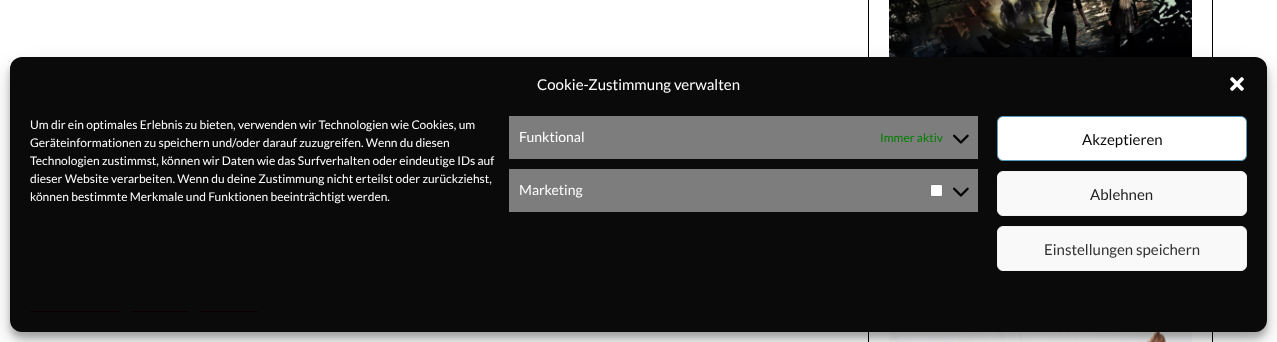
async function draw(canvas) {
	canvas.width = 1277;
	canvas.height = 342;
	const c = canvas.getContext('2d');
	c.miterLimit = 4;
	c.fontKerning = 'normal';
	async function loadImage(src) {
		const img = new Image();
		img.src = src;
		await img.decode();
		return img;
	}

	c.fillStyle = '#fff';
	c.fillRect(0, 0, 1277, 342);
	c.strokeStyle = '#000';
	c.strokeRect(868.5, -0.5, 344, 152);
	c.drawImage(await loadImage('img1.png'), 889, 0, 303, 57);
	c.strokeRect(868.5, 182.5, 344, 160);
	c.drawImage(await loadImage('img2.png'), 889, 332, 303, 10);
	c.fillStyle = '#0000003b';
	c.filter = 'blur(3px)';
	c.beginPath();
	c.roundRect(10, 63, 1257, 275, 12);
	c.fill();
	c.filter = 'none';
	c.fillStyle = '#00000030';
	c.filter = 'blur(10px)';
	c.beginPath();
	c.roundRect(10, 67, 1257, 275, 12);
	c.fill();
	c.filter = 'none';
	c.fillStyle = '#0a0a0a';
	c.beginPath();
	c.roundRect(10, 57, 1257, 275, 12);
	c.fill();
	c.font = '15px Lato';
	c.fillStyle = '#fff';
	c.fillText('Cookie-Zustimmung verwalten', 537, 90);
	c.drawImage(await loadImage('img3.png'), 1230, 77, 14, 14);
	c.font = '12px Lato';
	for (const [text, x, y] of [
		['Um dir ein optimales Erlebnis zu bieten, verwenden wir Technologien wie Cookies, um', 30, 129],
		['Geräteinformationen zu speichern und/oder darauf zuzugreifen. Wenn du diesen', 30, 147],
		['Technologien zustimmst, können wir Daten wie das Surfverhalten oder eindeutige IDs auf', 30, 165],
		['dieser Website verarbeiten. Wenn du deine Zustimmung nicht erteilst oder zurückziehst,', 30, 183],
		['können bestimmte Merkmale und Funktionen beeinträchtigt werden.', 30, 201],
	]) {
		c.fillText(text, x, y);
	}
	c.fillStyle = '#7d7d7d';
	c.fillRect(509, 116, 469, 43);
	c.font = '14px Lato';
	c.fillStyle = '#fff';
	c.fillText('Funktional', 519, 142);
	c.font = '12px Lato';
	c.fillStyle = '#008000';
	c.fillText('Immer aktiv', 880, 142);
	c.drawImage(await loadImage('img4.png'), 953, 134, 16, 10);
	c.fillStyle = '#7d7d7d';
	c.fillRect(509, 169, 469, 43);
	c.font = '14px Lato';
	c.fillStyle = '#fff';
	c.fillText('Marketing', 519, 195);
	c.beginPath();
	c.roundRect(930.5, 184.5, 12, 12, 1.5);
	c.fill();
	c.strokeStyle = '#767676';
	c.stroke();
	c.drawImage(await loadImage('img4.png'), 953, 187, 16, 10);
	c.beginPath();
	c.roundRect(997.5, 116.5, 249, 44, 5.5);
	c.fill();
	c.strokeStyle = '#569abc';
	c.stroke();
	c.font = '15px Lato';
	c.fillStyle = '#0a0a0a';
	c.fillText('Akzeptieren', 1082, 145);
	c.fillStyle = '#f9f9f9';
	c.beginPath();
	c.roundRect(997.5, 171.5, 249, 44, 5.5);
	c.fill();
	c.strokeStyle = '#f2f2f2';
	c.stroke();
	c.fillStyle = '#222';
	c.fillText('Ablehnen', 1090, 200);
	c.fillStyle = '#f9f9f9';
	c.beginPath();
	c.roundRect(997.5, 226.5, 249, 44, 5.5);
	c.fill();
	c.stroke();
	c.fillStyle = '#333';
	c.fillText('Einstellungen speichern', 1044, 255);
	for (const [x, y, w, h, color] of [
		[30, 311, 91, 1, '#0a0000'],
		[131, 311, 58, 1, '#0a0000'],
		[199, 311, 59, 1, '#0a0000'],
	]) {
		c.fillStyle = color;
		c.fillRect(x, y, w, h);
	}
}

draw(document.querySelector('canvas'));
